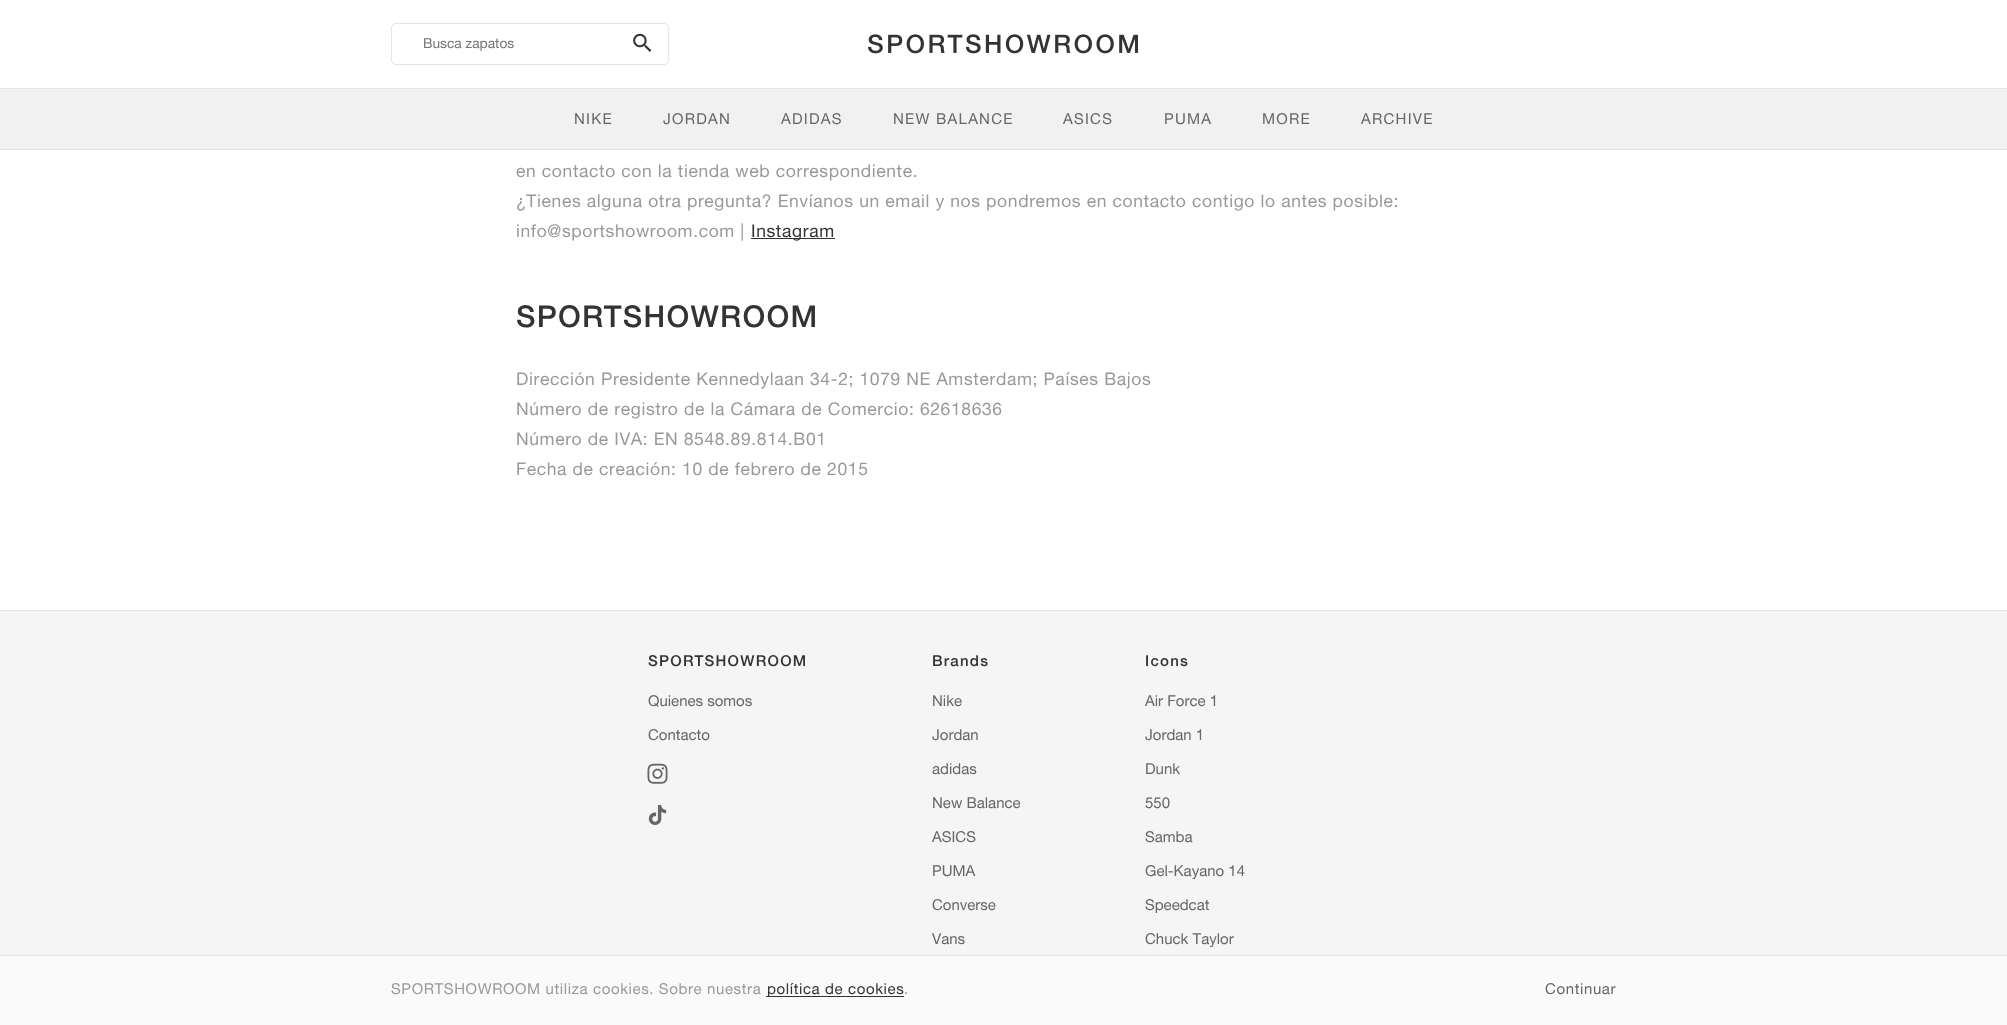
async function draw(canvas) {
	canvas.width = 2007;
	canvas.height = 1025;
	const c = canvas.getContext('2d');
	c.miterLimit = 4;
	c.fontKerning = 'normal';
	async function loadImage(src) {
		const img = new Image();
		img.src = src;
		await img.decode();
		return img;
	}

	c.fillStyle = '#fff';
	c.fillRect(0, 0, 2007, 1025);
	c.beginPath();
	c.roundRect(391.5, 23.5, 277, 41, 4.5);
	c.strokeStyle = '#e4e4e4';
	c.stroke();
	c.font = '13.75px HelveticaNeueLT';
	c.fillStyle = '#757575';
	c.fillText('Busca zapatos', 423, 48);
	c.drawImage(await loadImage('img1.png'), 633, 33, 19, 19);
	c.drawImage(await loadImage('img2.png'), 868, 34, 270, 20);
	for (const [x, y, w, h, color] of [
		[0, 89, 2007, 60, '#f1f1f1'],
		[0, 88, 2007, 1, '#e4e4e4'],
		[0, 149, 2007, 1, '#e4e4e4'],
	]) {
		c.fillStyle = color;
		c.fillRect(x, y, w, h);
	}
	c.letterSpacing = '1.25px';
	c.font = '15px HelveticaNeueLT';
	c.fillStyle = '#666';
	for (const [text, x, y] of [
		['NIKE', 574, 124],
		['JORDAN', 663, 124],
		['ADIDAS', 781, 124],
		['NEW BALANCE', 893, 124],
		['ASICS', 1063, 124],
		['PUMA', 1164, 124],
		['MORE', 1262, 124],
		['ARCHIVE', 1361, 124],
	]) {
		c.fillText(text, x, y);
	}
	c.letterSpacing = '0.62px';
	c.font = '17.5px HelveticaNeueLT';
	c.fillStyle = '#999';
	for (const [text, x, y] of [
		['en contacto con la tienda web correspondiente.', 516, 177],
		['¿Tienes alguna otra pregunta? Envíanos un email y nos pondremos en contacto contigo lo antes posible:', 516, 207],
		['info@sportshowroom.com |', 516, 237],
	]) {
		c.fillText(text, x, y);
	}
	c.fillStyle = '#333';
	c.fillRect(751, 238, 84, 1);
	c.fillText('Instagram', 751, 237);
	c.letterSpacing = '1.25px';
	c.font = '30px "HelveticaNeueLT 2"';
	c.fillText('SPORTSHOWROOM', 516, 327);
	c.letterSpacing = '0.62px';
	c.font = '17.5px HelveticaNeueLT';
	c.fillStyle = '#999';
	for (const [text, x, y] of [
		['Dirección Presidente Kennedylaan 34-2; 1079 NE Amsterdam; Países Bajos', 516, 385],
		['Número de registro de la Cámara de Comercio: 62618636', 516, 415],
		['Número de IVA: EN 8548.89.814.B01', 516, 445],
		['Fecha de creación: 10 de febrero de 2015', 516, 475],
	]) {
		c.fillText(text, x, y);
	}
	c.fillStyle = '#f5f5f5';
	c.fillRect(0, 611, 2007, 344);
	c.fillStyle = '#e4e4e4';
	c.fillRect(0, 610, 2007, 1);
	c.letterSpacing = '1.25px';
	c.font = '15px "HelveticaNeueLT 2"';
	c.fillStyle = '#333';
	c.fillText('SPORTSHOWROOM', 648, 666);
	c.letterSpacing = '0px';
	c.font = '15px HelveticaNeueLT';
	c.fillStyle = '#666';
	c.fillText('Quienes somos', 648, 706);
	c.fillText('Contacto', 648, 740);
	c.drawImage(await loadImage('img3.png'), 647, 763, 21, 21);
	c.drawImage(await loadImage('img4.png'), 648, 805, 19, 20);
	c.letterSpacing = '1.25px';
	c.font = '15px "HelveticaNeueLT 2"';
	c.fillStyle = '#333';
	c.fillText('Brands', 932, 666);
	c.letterSpacing = '0px';
	c.font = '15px HelveticaNeueLT';
	c.fillStyle = '#666';
	for (const [text, x, y] of [
		['Nike', 932, 706],
		['Jordan', 932, 740],
		['adidas', 932, 774],
		['New Balance', 932, 808],
		['ASICS', 932, 842],
		['PUMA', 932, 876],
		['Converse', 932, 910],
		['Vans', 932, 944],
	]) {
		c.fillText(text, x, y);
	}
	c.letterSpacing = '1.25px';
	c.font = '15px "HelveticaNeueLT 2"';
	c.fillStyle = '#333';
	c.fillText('Icons', 1145, 666);
	c.letterSpacing = '0px';
	c.font = '15px HelveticaNeueLT';
	c.fillStyle = '#666';
	for (const [text, x, y] of [
		['Air Force 1', 1145, 706],
		['Jordan 1', 1145, 740],
		['Dunk', 1145, 774],
		['550', 1145, 808],
		['Samba', 1145, 842],
		['Gel-Kayano 14', 1145, 876],
		['Speedcat', 1145, 910],
		['Chuck Taylor', 1145, 944],
	]) {
		c.fillText(text, x, y);
	}
	c.fillStyle = '#fafafa';
	c.fillRect(0, 956, 2007, 69);
	c.fillStyle = '#e4e4e4';
	c.fillRect(0, 955, 2007, 1);
	c.letterSpacing = '0.62px';
	c.fillStyle = '#999';
	c.fillText('SPORTSHOWROOM utiliza cookies. Sobre nuestra', 391, 994);
	c.fillStyle = '#333';
	c.fillRect(766, 996, 138, 1);
	c.fillText('política de cookies', 767, 994);
	c.fillStyle = '#999';
	c.fillText('.', 904, 994);
	c.fillStyle = '#666';
	c.fillText('Continuar', 1545, 994);
}

draw(document.querySelector('canvas'));
